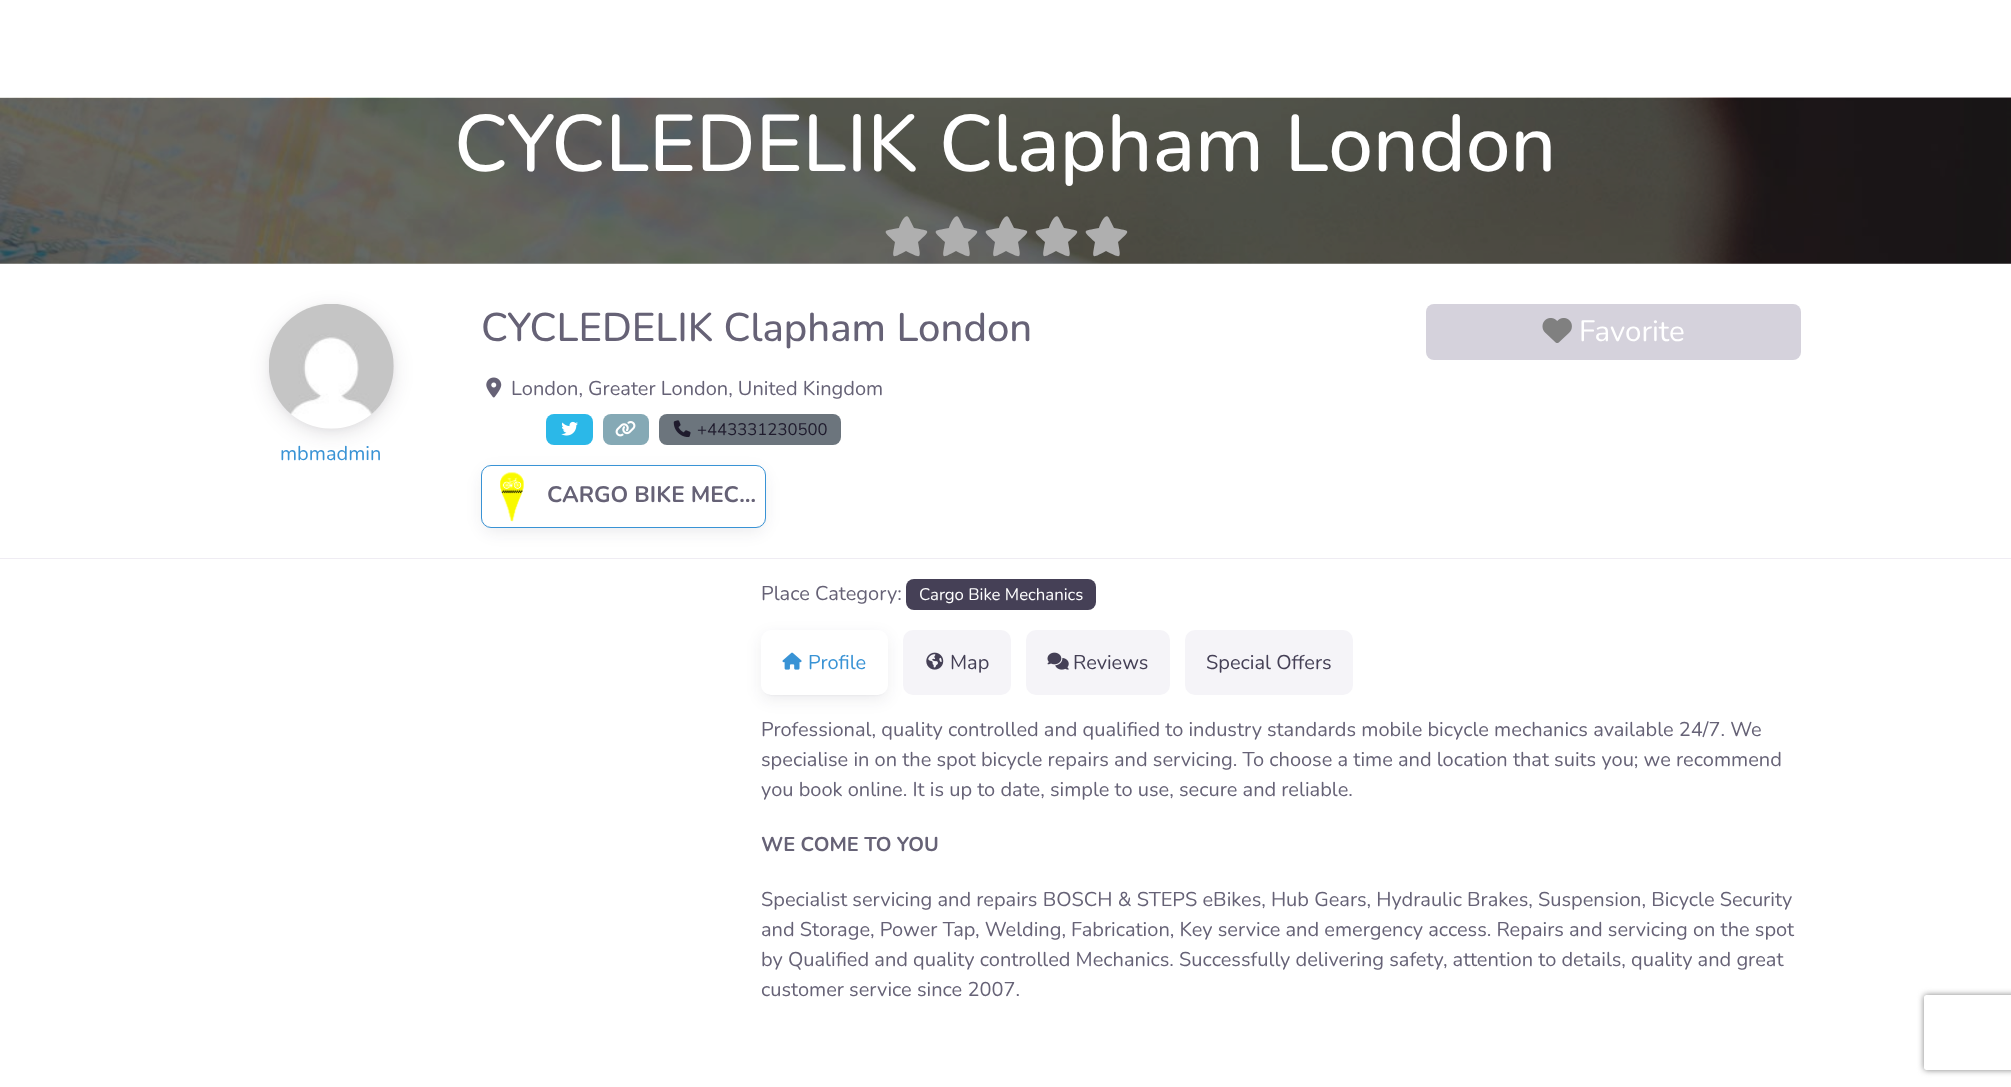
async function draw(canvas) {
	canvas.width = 2011;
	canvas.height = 1087;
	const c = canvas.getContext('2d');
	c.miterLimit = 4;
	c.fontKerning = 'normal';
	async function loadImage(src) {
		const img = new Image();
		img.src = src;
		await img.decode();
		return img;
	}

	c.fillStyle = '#fff';
	c.fillRect(0, 0, 2011, 1087);
	c.drawImage(await loadImage('img1.png'), 0, 97, 2011, 167);
	c.font = '500 80px Nunito';
	c.fillText('CYCLEDELIK Clapham London', 454, 171);
	c.fillStyle = '#afafaf';
	c.beginPath();
	c.moveTo(909, 218);
	c.bezierCurveTo(905, 211, 899, 227, 899, 228);
	c.bezierCurveTo(882, 231, 882, 230, 895, 242);
	c.bezierCurveTo(892, 259, 891, 259, 906, 251);
	c.bezierCurveTo(922, 259, 921, 259, 918, 242);
	c.bezierCurveTo(931, 230, 931, 231, 914, 228);
	c.closePath();
	c.fill();
	c.beginPath();
	c.moveTo(959, 218);
	c.bezierCurveTo(955, 211, 949, 227, 949, 228);
	c.bezierCurveTo(932, 231, 932, 230, 945, 242);
	c.bezierCurveTo(942, 259, 941, 259, 956, 251);
	c.bezierCurveTo(972, 259, 971, 259, 968, 242);
	c.bezierCurveTo(981, 230, 981, 231, 964, 228);
	c.closePath();
	c.fill();
	c.beginPath();
	c.moveTo(1009, 218);
	c.bezierCurveTo(1005, 211, 999, 227, 999, 228);
	c.bezierCurveTo(982, 231, 982, 230, 995, 242);
	c.bezierCurveTo(992, 259, 991, 259, 1006, 251);
	c.bezierCurveTo(1022, 259, 1021, 259, 1018, 242);
	c.bezierCurveTo(1031, 230, 1031, 231, 1014, 228);
	c.closePath();
	c.fill();
	c.beginPath();
	c.moveTo(1059, 218);
	c.bezierCurveTo(1055, 211, 1049, 227, 1049, 228);
	c.bezierCurveTo(1032, 231, 1032, 230, 1045, 242);
	c.bezierCurveTo(1042, 259, 1041, 259, 1056, 251);
	c.bezierCurveTo(1072, 259, 1071, 259, 1068, 242);
	c.bezierCurveTo(1081, 230, 1081, 231, 1064, 228);
	c.closePath();
	c.fill();
	c.beginPath();
	c.moveTo(1109, 218);
	c.bezierCurveTo(1105, 211, 1099, 227, 1099, 228);
	c.bezierCurveTo(1082, 231, 1082, 230, 1095, 242);
	c.bezierCurveTo(1092, 259, 1091, 259, 1106, 251);
	c.bezierCurveTo(1122, 259, 1121, 259, 1118, 242);
	c.bezierCurveTo(1131, 230, 1131, 231, 1114, 228);
	c.closePath();
	c.fill();
	c.fillStyle = '#efecf3';
	c.fillRect(0, 558, 2011, 1);
	c.font = '500 40px Nunito';
	c.fillStyle = '#666276';
	c.fillText('CYCLEDELIK Clapham London', 481, 341);
	c.drawImage(await loadImage('img2.png'), 486, 377, 16, 21);
	c.font = '20px Nunito';
	c.fillText('London, Greater London, United Kingdom', 511, 395);
	c.fillStyle = '#2bb8e8';
	c.beginPath();
	c.roundRect(546, 414, 47, 31, 8);
	c.fill();
	c.drawImage(await loadImage('img3.png'), 561, 421, 17, 15);
	c.fillStyle = '#85a9b5';
	c.beginPath();
	c.roundRect(603, 414, 46, 31, 8);
	c.fill();
	c.drawImage(await loadImage('img4.png'), 615, 421, 21, 16);
	c.fillStyle = '#6c757d';
	c.beginPath();
	c.roundRect(659, 414, 182, 31, 8);
	c.fill();
	c.drawImage(await loadImage('img5.png'), 673, 420, 18, 17);
	c.font = '16.75px Nunito';
	c.fillStyle = '#1f1b2d';
	c.fillText('+443331230500', 697, 435);
	c.save();
	c.beginPath();
	c.moveTo(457, 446);
	c.lineTo(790, 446);
	c.lineTo(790, 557);
	c.lineTo(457, 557);
	c.closePath();
	c.moveTo(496, 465);
	c.lineTo(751, 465);
	c.bezierCurveTo(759.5, 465, 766, 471.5, 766, 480);
	c.lineTo(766, 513);
	c.bezierCurveTo(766, 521.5, 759.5, 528, 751, 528);
	c.lineTo(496, 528);
	c.bezierCurveTo(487.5, 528, 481, 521.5, 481, 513);
	c.lineTo(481, 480);
	c.bezierCurveTo(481, 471.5, 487.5, 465, 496, 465);
	c.closePath();
	c.clip('evenodd');
	c.fillStyle = '#1f1b2d14';
	c.filter = 'blur(7.5px)';
	c.beginPath();
	c.roundRect(481, 470, 285, 63, 15);
	c.fill();
	c.filter = 'none';
	c.restore();
	c.beginPath();
	c.roundRect(481.5, 465.5, 284, 62, 9.5);
	c.strokeStyle = '#3993d5';
	c.stroke();
	c.drawImage(await loadImage('img6.png'), 500, 472, 24, 50);
	c.font = 'bold 22.5px Nunito';
	c.fillStyle = '#666276';
	c.fillText('CARGO BIKE MEC…', 547, 502);
	c.fillStyle = '#d5d2dc';
	c.beginPath();
	c.roundRect(1426, 304, 375, 56, 8);
	c.fill();
	c.drawImage(await loadImage('img7.png'), 1542, 318, 30, 25);
	c.font = '29.5px Nunito';
	c.fillStyle = '#fff';
	c.fillText('Favorite', 1579, 341);
	c.fillStyle = '#1f1b2d1f';
	c.filter = 'blur(10px)';
	c.beginPath();
	c.roundRect(269, 309, 125, 125, 62.5);
	c.fill();
	c.filter = 'none';
	c.filter = 'blur(5px)';
	c.beginPath();
	c.roundRect(274, 311, 115, 115, 57.5);
	c.fill();
	c.filter = 'none';
	c.drawImage(await loadImage('img8.png'), 269, 304, 125, 125);
	c.font = '20px Nunito';
	c.fillStyle = '#3993d5';
	c.fillText('mbmadmin', 280, 460);
	c.fillStyle = '#666276';
	c.fillText('Place Category:', 761, 600);
	c.fillStyle = '#454056';
	c.beginPath();
	c.roundRect(906, 579, 190, 31, 8);
	c.fill();
	c.font = '16.75px Nunito';
	c.fillStyle = '#fff';
	c.fillText('Cargo Bike Mechanics', 919, 600);
	c.fillStyle = '#1f1b2d14';
	c.filter = 'blur(7.5px)';
	c.beginPath();
	c.roundRect(761, 635, 127, 65, 10);
	c.fill();
	c.filter = 'none';
	c.filter = 'blur(1px)';
	c.beginPath();
	c.roundRect(764, 635, 121, 60, 8);
	c.fill();
	c.filter = 'none';
	c.fillStyle = '#fff';
	c.beginPath();
	c.roundRect(761, 630, 127, 65, 10);
	c.fill();
	c.drawImage(await loadImage('img9.png'), 782, 652, 20, 18);
	c.font = '20px Nunito';
	c.fillStyle = '#3993d5';
	c.fillText('Profile', 808, 669);
	c.fillStyle = '#f5f4f8';
	c.beginPath();
	c.roundRect(903, 630, 108, 65, 10);
	c.fill();
	c.drawImage(await loadImage('img10.png'), 926, 652, 18, 18);
	c.fillStyle = '#454056';
	c.fillText('Map', 950, 669);
	c.fillStyle = '#f5f4f8';
	c.beginPath();
	c.roundRect(1026, 630, 144, 65, 10);
	c.fill();
	c.drawImage(await loadImage('img11.png'), 1047, 652, 22, 18);
	c.fillStyle = '#454056';
	c.fillText('Reviews', 1073, 669);
	c.fillStyle = '#f5f4f8';
	c.beginPath();
	c.roundRect(1185, 630, 168, 65, 10);
	c.fill();
	c.fillStyle = '#454056';
	c.fillText('Special Offers', 1206, 669);
	c.fillStyle = '#666276';
	for (const [text, x, y] of [
		['Professional, quality controlled and qualified to industry standards mobile bicycle mechanics available 24/7. We', 761, 736],
		['specialise in on the spot bicycle repairs and servicing. To choose a time and location that suits you; we recommend', 761, 766],
		['you book online. It is up to date, simple to use, secure and reliable.', 761, 796],
	]) {
		c.fillText(text, x, y);
	}
	c.font = 'bold 20px Nunito';
	c.fillText('WE COME TO YOU', 761, 851);
	c.font = '20px Nunito';
	for (const [text, x, y] of [
		['Specialist servicing and repairs BOSCH & STEPS eBikes, Hub Gears, Hydraulic Brakes, Suspension, Bicycle Security', 761, 906],
		['and Storage, Power Tap, Welding, Fabrication, Key service and emergency access. Repairs and servicing on the spot', 761, 936],
		['by Qualified and quality controlled Mechanics. Successfully delivering safety, attention to details, quality and great', 761, 966],
		['customer service since 2007.', 761, 996],
	]) {
		c.fillText(text, x, y);
	}
	c.save();
	c.beginPath();
	c.moveTo(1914, 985);
	c.lineTo(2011, 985);
	c.lineTo(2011, 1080);
	c.lineTo(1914, 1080);
	c.closePath();
	c.moveTo(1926.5, 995);
	c.lineTo(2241.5, 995);
	c.bezierCurveTo(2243, 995, 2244, 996, 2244, 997.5);
	c.lineTo(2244, 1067.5);
	c.bezierCurveTo(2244, 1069, 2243, 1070, 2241.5, 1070);
	c.lineTo(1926.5, 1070);
	c.bezierCurveTo(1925, 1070, 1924, 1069, 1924, 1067.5);
	c.lineTo(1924, 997.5);
	c.bezierCurveTo(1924, 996, 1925, 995, 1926.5, 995);
	c.closePath();
	c.clip('evenodd');
	c.fillStyle = '#808080';
	c.filter = 'blur(3px)';
	c.beginPath();
	c.roundRect(1924, 995, 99, 75, 2.5);
	c.fill();
	c.filter = 'none';
	c.restore();
}

draw(document.querySelector('canvas'));
